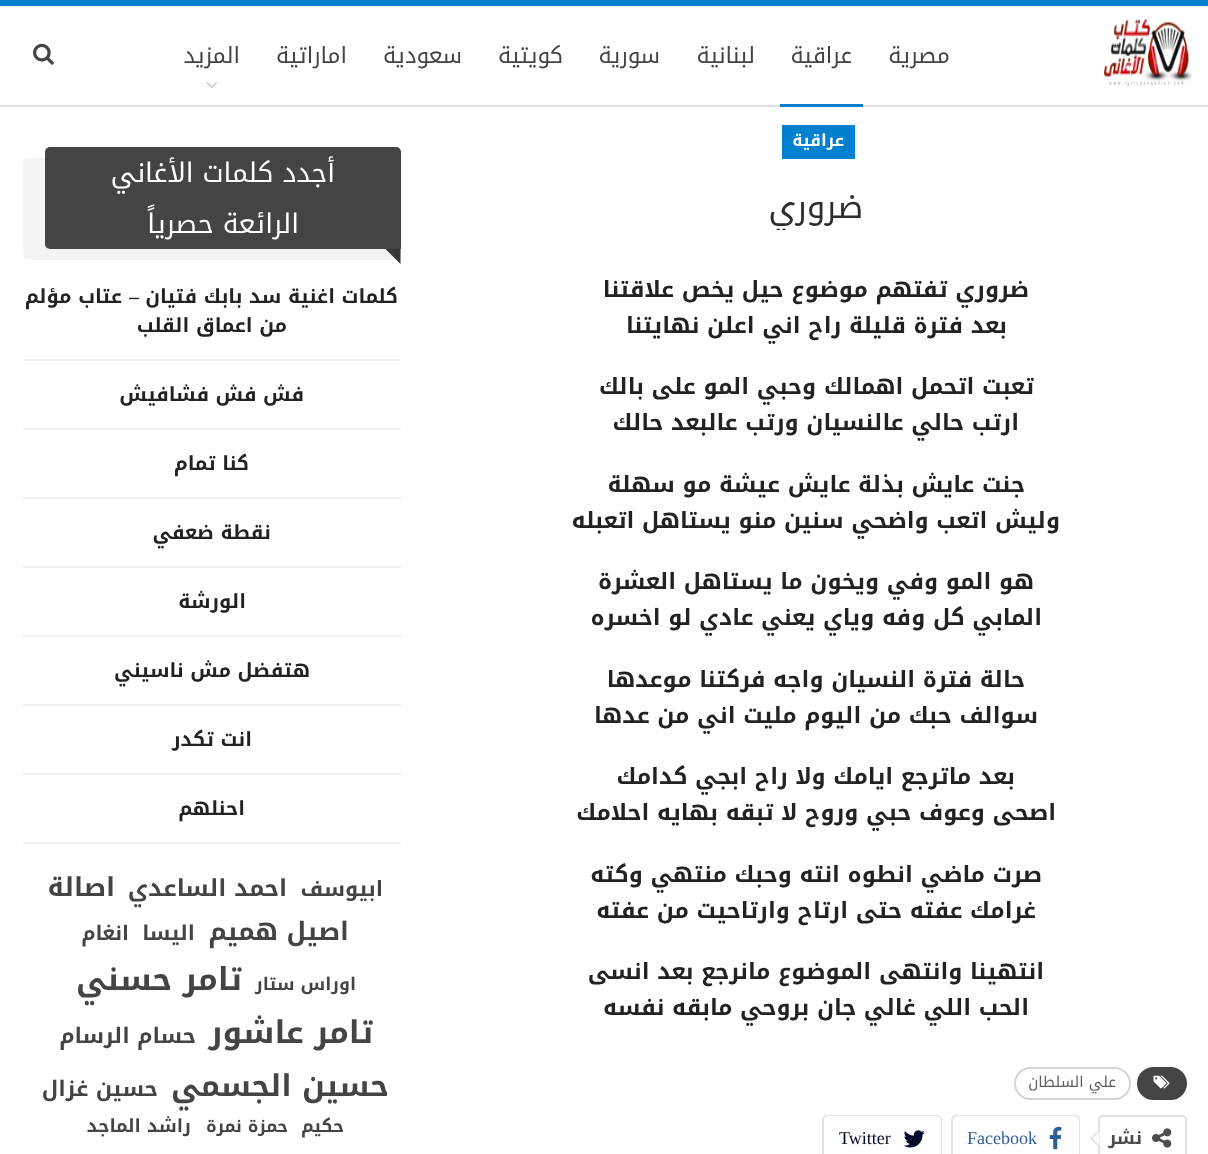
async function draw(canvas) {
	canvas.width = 1208;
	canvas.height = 1154;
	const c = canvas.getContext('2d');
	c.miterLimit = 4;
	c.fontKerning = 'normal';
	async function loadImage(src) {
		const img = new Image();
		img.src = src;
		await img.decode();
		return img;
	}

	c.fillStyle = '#fff';
	c.fillRect(0, 0, 1208, 1154);
	c.fillStyle = '#0080ce';
	c.fillRect(0, 0, 1208, 6);
	c.fillStyle = '#dedede';
	c.fillRect(0, 105, 1208, 2);
	c.drawImage(await loadImage('img1.png'), 1104, 19, 88, 67);
	c.direction = 'rtl';
	c.font = '22.5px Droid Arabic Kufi';
	c.fillStyle = '#444';
	c.fillText('مصرية', 950, 63);
	c.fillText('عراقية', 852, 63);
	c.fillStyle = '#0080ce';
	c.fillRect(780, 104, 83, 3);
	c.fillStyle = '#444';
	for (const [text, x, y] of [
		['لبنانية', 755, 63],
		['سورية', 660, 63],
		['كويتية', 563, 63],
		['سعودية', 462, 63],
		['اماراتية', 347, 63],
		['المزيد', 240, 63],
	]) {
		c.fillText(text, x, y);
	}
	c.drawImage(await loadImage('img2.png'), 206, 82, 11, 6);
	c.drawImage(await loadImage('img3.png'), 33, 43, 21, 22);
	c.fillStyle = '#0080ce';
	c.fillRect(782, 125, 73, 34);
	c.font = 'bold 16.5px Droid Arabic Kufi';
	c.fillStyle = '#fff';
	c.fillText('عراقية', 844, 146);
	c.save();
	c.beginPath();
	c.rect(446, 125, 741, 105);
	c.clip();
	c.font = '33px Droid Arabic Kufi';
	c.fillStyle = '#2d2d2d';
	c.fillText('ضروري', 863, 218);
	c.restore();
	c.font = 'bold 22.5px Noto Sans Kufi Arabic';
	c.fillStyle = '#222';
	for (const [text, x, y] of [
		['ضروري تفتهم موضوع حيل يخص علاقتنا', 1029, 297],
		['بعد فترة قليلة راح اني اعلن نهايتنا', 1007, 333],
		['تعبت اتحمل اهمالك وحبي المو على بالك', 1034, 394],
		['ارتب حالي عالنسيان ورتب عالبعد حالك', 1019, 430],
		['جنت عايش بذلة عايش عيشة مو سهلة', 1025, 492],
		['وليش اتعب واضحي سنين منو يستاهل اتعبله', 1060, 528],
		['هو المو وفي ويخون ما يستاهل العشرة', 1034, 589],
		['المابي كل وفه وياي يعني عادي لو اخسره', 1042, 625],
		['حالة فترة النسيان واجه فركتنا موعدها', 1025, 687],
		['سوالف حبك من اليوم مليت اني من عدها', 1038, 723],
		['بعد ماترجع ايامك ولا راح ابجي كدامك', 1015, 784],
		['اصحى وعوف حبي وروح لا تبقه بهايه احلامك', 1056, 820],
		['صرت ماضي انطوه انته وحبك منتهي وكته', 1042, 882],
		['غرامك عفته حتى ارتاح وارتاحيت من عفته', 1036, 918],
		['انتهينا وانتهى الموضوع مانرجع بعد انسى', 1044, 979],
		['الحب اللي غالي جان بروحي مابقه نفسه', 1029, 1015],
	]) {
		c.fillText(text, x, y);
	}
	c.fillStyle = '#444';
	c.beginPath();
	c.roundRect(1138, 1068, 48, 31, 15.5);
	c.fill();
	c.strokeStyle = '#444';
	c.lineWidth = 2;
	c.stroke();
	c.drawImage(await loadImage('img4.png'), 1153, 1075, 17, 14);
	c.beginPath();
	c.roundRect(1015, 1068, 115, 31, 15.5);
	c.strokeStyle = '#d4d4d4';
	c.stroke();
	c.font = '15px Droid Arabic Kufi';
	c.fillStyle = '#5f5f5f';
	c.fillText('علي السلطان', 1116, 1087);
	c.beginPath();
	c.roundRect(1099, 1116, 87, 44, 4);
	c.strokeStyle = '#e2e2e2';
	c.stroke();
	c.drawImage(await loadImage('img5.png'), 1152, 1128, 20, 20);
	c.font = 'bold 18px Droid Arabic Kufi';
	c.fillStyle = '#4d4d4d';
	c.fillText('نشر', 1142, 1144);
	c.fillStyle = '#d7d7d7';
	c.beginPath();
	c.moveTo(1099.5, 1129.5);
	c.lineTo(1099.5, 1147.5);
	c.lineTo(1090.5, 1138.5);
	c.closePath();
	c.fill();
	c.fillStyle = '#fff';
	c.beginPath();
	c.moveTo(1099.5, 1131);
	c.lineTo(1099.5, 1146);
	c.lineTo(1092, 1138.5);
	c.closePath();
	c.fill();
	c.beginPath();
	c.roundRect(952, 1116, 127, 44, 4);
	c.stroke();
	c.beginPath();
	c.roundRect(953, 1116, 126, 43, 5);
	c.fill();
	c.drawImage(await loadImage('img6.png'), 1049, 1126, 13, 24);
	c.direction = 'ltr';
	c.font = '18px Liberation Serif';
	c.fillStyle = '#2d5f9a';
	c.fillText('Facebook', 967, 1144);
	c.beginPath();
	c.roundRect(823, 1116, 118, 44, 4);
	c.stroke();
	c.fillStyle = '#fff';
	c.beginPath();
	c.roundRect(824, 1116, 117, 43, 5);
	c.fill();
	c.drawImage(await loadImage('img7.png'), 903, 1130, 22, 18);
	c.fillStyle = '#030929';
	c.fillText('Twitter', 839, 1144);
	c.fillStyle = '#f3f3f3';
	c.beginPath();
	c.roundRect(23, 158, 378, 102, 5);
	c.fill();
	c.fillStyle = '#444';
	c.beginPath();
	c.roundRect(45, 147, 356, 102, [5, 5, 0, 5]);
	c.fill();
	c.direction = 'rtl';
	c.font = '27px Droid Arabic Kufi';
	c.fillStyle = '#fff';
	c.fillText('أجدد كلمات الأغاني', 335, 182);
	c.fillText('الرائعة حصرياً', 299, 233);
	c.fillStyle = '#444';
	c.beginPath();
	c.moveTo(385.5, 249);
	c.lineTo(400.5, 249);
	c.lineTo(400.5, 264);
	c.closePath();
	c.fill();
	c.fillStyle = '#0000002e';
	c.beginPath();
	c.moveTo(385.5, 249);
	c.lineTo(400.5, 249);
	c.lineTo(400.5, 264);
	c.closePath();
	c.fill();
	c.fillStyle = '#f0f0f0';
	c.fillRect(23, 359, 378, 2);
	c.font = 'bold 19.5px Droid Arabic Kufi';
	c.fillStyle = '#222';
	c.fillText('كلمات اغنية سد بابك فتيان', 398, 303);
	c.font = 'bold 19.5px Liberation Serif';
	c.fillText('–', 139, 303);
	c.font = 'bold 19.5px Droid Arabic Kufi';
	c.fillText('عتاب مؤلم', 122, 303);
	c.fillText('من اعماق القلب', 287, 332);
	c.fillStyle = '#f0f0f0';
	c.fillRect(23, 428, 378, 2);
	c.fillStyle = '#222';
	c.fillText('فش فش فشافيش', 304, 401);
	c.fillStyle = '#f0f0f0';
	c.fillRect(23, 497, 378, 2);
	c.fillStyle = '#222';
	c.fillText('كنا تمام', 249, 470);
	c.fillStyle = '#f0f0f0';
	c.fillRect(23, 566, 378, 2);
	c.fillStyle = '#222';
	c.fillText('نقطة ضعفي', 271, 539);
	c.fillStyle = '#f0f0f0';
	c.fillRect(23, 635, 378, 2);
	c.fillStyle = '#222';
	c.fillText('الورشة', 246, 608);
	c.fillStyle = '#f0f0f0';
	c.fillRect(23, 704, 378, 2);
	c.fillStyle = '#222';
	c.fillText('هتفضل مش ناسيني', 310, 677);
	c.fillStyle = '#f0f0f0';
	c.fillRect(23, 773, 378, 2);
	c.fillStyle = '#222';
	c.fillText('انت تكدر', 252, 746);
	c.fillStyle = '#f0f0f0';
	c.fillRect(23, 842, 378, 2);
	c.fillStyle = '#222';
	c.fillText('احنلهم', 245, 815);
	c.font = 'bold 21px Droid Arabic Kufi';
	c.fillStyle = '#444';
	c.fillText('ابيوسف', 383, 896);
	c.font = 'bold 23.25px Droid Arabic Kufi';
	c.fillText('احمد الساعدي', 287, 896);
	c.font = 'bold 26px Droid Arabic Kufi';
	c.fillText('اصالة', 115, 896);
	c.font = 'bold 25.5px Droid Arabic Kufi';
	c.fillText('اصيل هميم', 349, 940);
	c.font = 'bold 20.5px Droid Arabic Kufi';
	c.fillText('اليسا', 195, 940);
	c.font = 'bold 20px Droid Arabic Kufi';
	c.fillText('انغام', 129, 940);
	c.font = 'bold 17.5px Droid Arabic Kufi';
	c.fillText('اوراس ستار', 356, 990);
	c.font = 'bold 31.5px Droid Arabic Kufi';
	c.fillText('تامر حسني', 242, 990);
	c.font = 'bold 31.25px Droid Arabic Kufi';
	c.fillText('تامر عاشور', 373, 1043);
	c.font = 'bold 21.5px Droid Arabic Kufi';
	c.fillText('حسام الرسام', 196, 1043);
	c.font = 'bold 30px Droid Arabic Kufi';
	c.fillText('حسين الجسمي', 389, 1096);
	c.font = 'bold 21.5px Droid Arabic Kufi';
	c.fillText('حسين غزال', 158, 1096);
	c.font = 'bold 17.5px Droid Arabic Kufi';
	c.fillText('حكيم', 344, 1132);
	c.font = 'bold 17px Droid Arabic Kufi';
	c.fillText('حمزة نمرة', 288, 1132);
	c.font = 'bold 18px Droid Arabic Kufi';
	c.fillText('راشد الماجد', 191, 1132);
}

draw(document.querySelector('canvas'));
